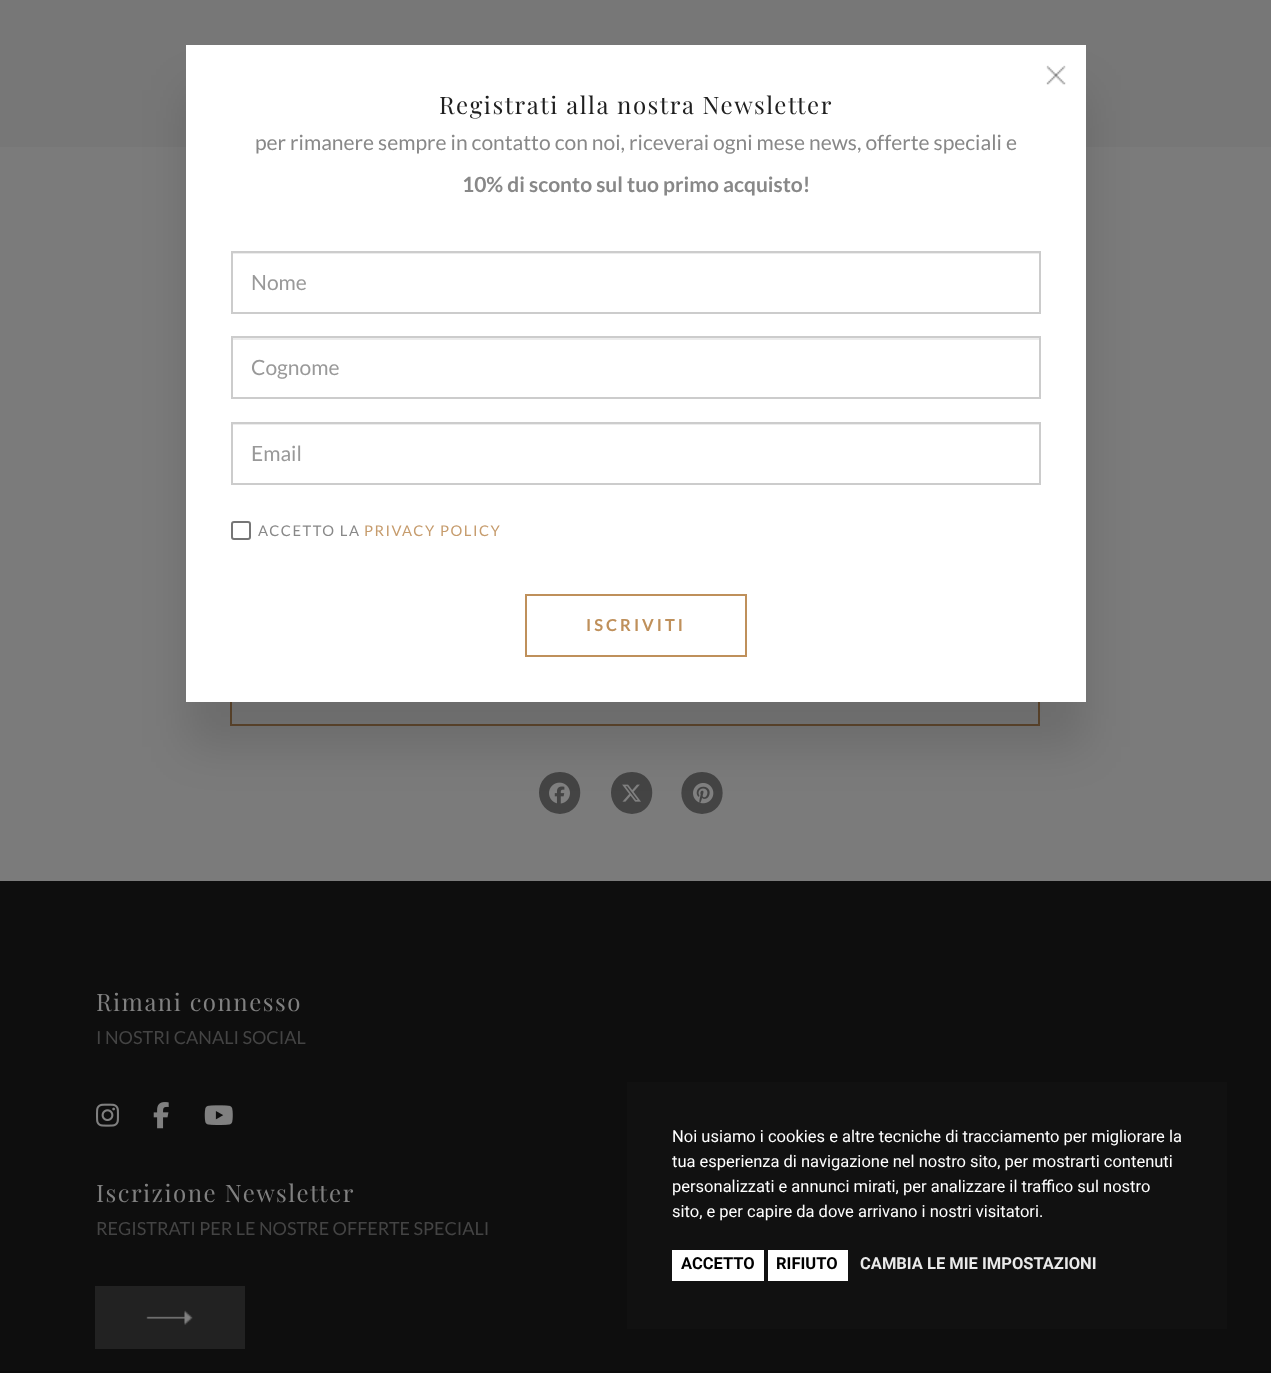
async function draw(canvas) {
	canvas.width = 1271;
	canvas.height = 1373;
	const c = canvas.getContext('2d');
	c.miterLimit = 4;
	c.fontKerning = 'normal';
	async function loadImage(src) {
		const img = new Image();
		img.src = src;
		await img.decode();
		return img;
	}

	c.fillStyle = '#7b7b7b';
	c.fillRect(0, 0, 1271, 1373);
	c.fillStyle = '#777';
	c.fillRect(0, 0, 1271, 147);
	c.strokeStyle = '#60482e';
	c.lineWidth = 2;
	c.strokeRect(231, 652, 808, 73);
	c.fillStyle = '#444';
	c.beginPath();
	c.moveTo(560, 814);
	c.bezierCurveTo(587, 813, 587, 772, 560, 772);
	c.bezierCurveTo(532, 772, 532, 813, 560, 814);
	c.closePath();
	c.fill();
	c.drawImage(await loadImage('img1.png'), 549, 782, 21, 22);
	c.beginPath();
	c.moveTo(632, 814);
	c.bezierCurveTo(659, 813, 659, 772, 632, 772);
	c.bezierCurveTo(604, 772, 604, 813, 632, 814);
	c.closePath();
	c.fill();
	c.drawImage(await loadImage('img2.png'), 622, 784, 19, 18);
	c.beginPath();
	c.moveTo(702, 814);
	c.bezierCurveTo(730, 813, 729, 772, 702, 772);
	c.bezierCurveTo(675, 772, 674, 813, 702, 814);
	c.closePath();
	c.fill();
	c.drawImage(await loadImage('img3.png'), 693, 783, 21, 21);
	c.fillStyle = '#0000001f';
	c.filter = 'blur(22.5px)';
	c.beginPath();
	c.rect(186, 90, 900, 657);
	c.fill();
	c.filter = 'none';
	c.fillStyle = '#fff';
	c.fillRect(186, 45, 900, 657);
	c.drawImage(await loadImage('img4.png'), 1046, 65, 20, 20);
	c.letterSpacing = '1.5px';
	c.font = '24px Playfair Display';
	c.fillStyle = '#1f1f1f';
	c.fillText('Registrati alla nostra Newsletter', 439, 114);
	c.letterSpacing = '0px';
	c.font = '21px Lato';
	c.fillStyle = '#888';
	c.fillText('per rimanere sempre in contatto con noi, riceverai ogni mese news, offerte speciali e', 255, 150);
	c.font = 'bold 21px Lato';
	c.fillText('10% di sconto sul tuo primo acquisto!', 462, 192);
	c.fillStyle = '#ececec';
	c.fillRect(233, 253, 807, 1);
	c.strokeStyle = '#ccc';
	c.strokeRect(232, 252, 808, 61);
	c.font = '21px Lato';
	c.fillStyle = '#999';
	c.fillText('Nome', 251, 290);
	c.fillStyle = '#ececec';
	c.fillRect(233, 338, 807, 2);
	c.strokeRect(232, 337, 808, 61);
	c.fillStyle = '#999';
	c.fillText('Cognome', 251, 375);
	c.fillStyle = '#ececec';
	c.fillRect(233, 424, 807, 1);
	c.strokeRect(232, 423, 808, 61);
	c.fillStyle = '#999';
	c.fillText('Email', 251, 461);
	c.beginPath();
	c.roundRect(232, 522, 18, 17, 2);
	c.strokeStyle = '#767676';
	c.stroke();
	c.letterSpacing = '1.5px';
	c.font = '14.75px Lato';
	c.fillStyle = '#888';
	c.fillText('ACCETTO LA', 258, 536);
	c.fillStyle = '#c69c6d';
	c.fillText('PRIVACY POLICY', 364, 536);
	c.strokeStyle = '#bf905b';
	c.strokeRect(526, 595, 220, 61);
	c.letterSpacing = '3px';
	c.font = 'bold 16.5px Lato';
	c.fillStyle = '#bf905b';
	c.fillText('ISCRIVITI', 586, 631);
	c.fillStyle = '#0e0e0e';
	c.fillRect(0, 881, 1271, 490);
	c.letterSpacing = '1.5px';
	c.font = '24px Playfair Display';
	c.fillStyle = '#808080';
	c.fillText('Rimani connesso', 96, 1011);
	c.letterSpacing = '0px';
	c.font = '18px Lato';
	c.fillStyle = '#444';
	c.fillText('I NOSTRI CANALI SOCIAL', 96, 1044);
	c.drawImage(await loadImage('img5.png'), 96, 1103, 23, 24);
	c.drawImage(await loadImage('img6.png'), 153, 1102, 16, 27);
	c.drawImage(await loadImage('img7.png'), 204, 1105, 29, 20);
	c.letterSpacing = '1.5px';
	c.font = '24px Playfair Display';
	c.fillStyle = '#808080';
	c.fillText('Iscrizione Newsletter', 96, 1202);
	c.letterSpacing = '0px';
	c.font = '18px Lato';
	c.fillStyle = '#444';
	c.fillText('REGISTRATI PER LE NOSTRE OFFERTE SPECIALI', 96, 1235);
	c.fillStyle = '#222';
	c.fillRect(95, 1286, 150, 63);
	c.drawImage(await loadImage('img8.png'), 146, 1310, 47, 15);
	c.fillStyle = '#0b0b0b';
	c.fillRect(0, 1371, 1271, 2);
	c.fillStyle = '#111';
	c.fillRect(627, 1082, 600, 247);
	c.font = '16.5px Roboto';
	c.fillStyle = '#fff';
	for (const [text, x, y] of [
		['Noi usiamo i cookies e altre tecniche di tracciamento per migliorare la', 672, 1142],
		['tua esperienza di navigazione nel nostro sito, per mostrarti contenuti', 672, 1167],
		['personalizzati e annunci mirati, per analizzare il traffico sul nostro', 672, 1192],
		['sito, e per capire da dove arrivano i nostri visitatori.', 672, 1217],
	]) {
		c.fillText(text, x, y);
	}
	c.fillRect(672, 1250, 92, 31);
	c.font = 'bold 16.5px Roboto';
	c.fillStyle = '#000';
	c.fillText('ACCETTO', 681, 1269);
	c.fillStyle = '#fff';
	c.fillRect(768, 1250, 80, 31);
	c.fillStyle = '#000';
	c.fillText('RIFIUTO', 776, 1269);
	c.fillStyle = '#eaeaea';
	c.fillText('CAMBIA LE MIE IMPOSTAZIONI', 860, 1269);
}

draw(document.querySelector('canvas'));
